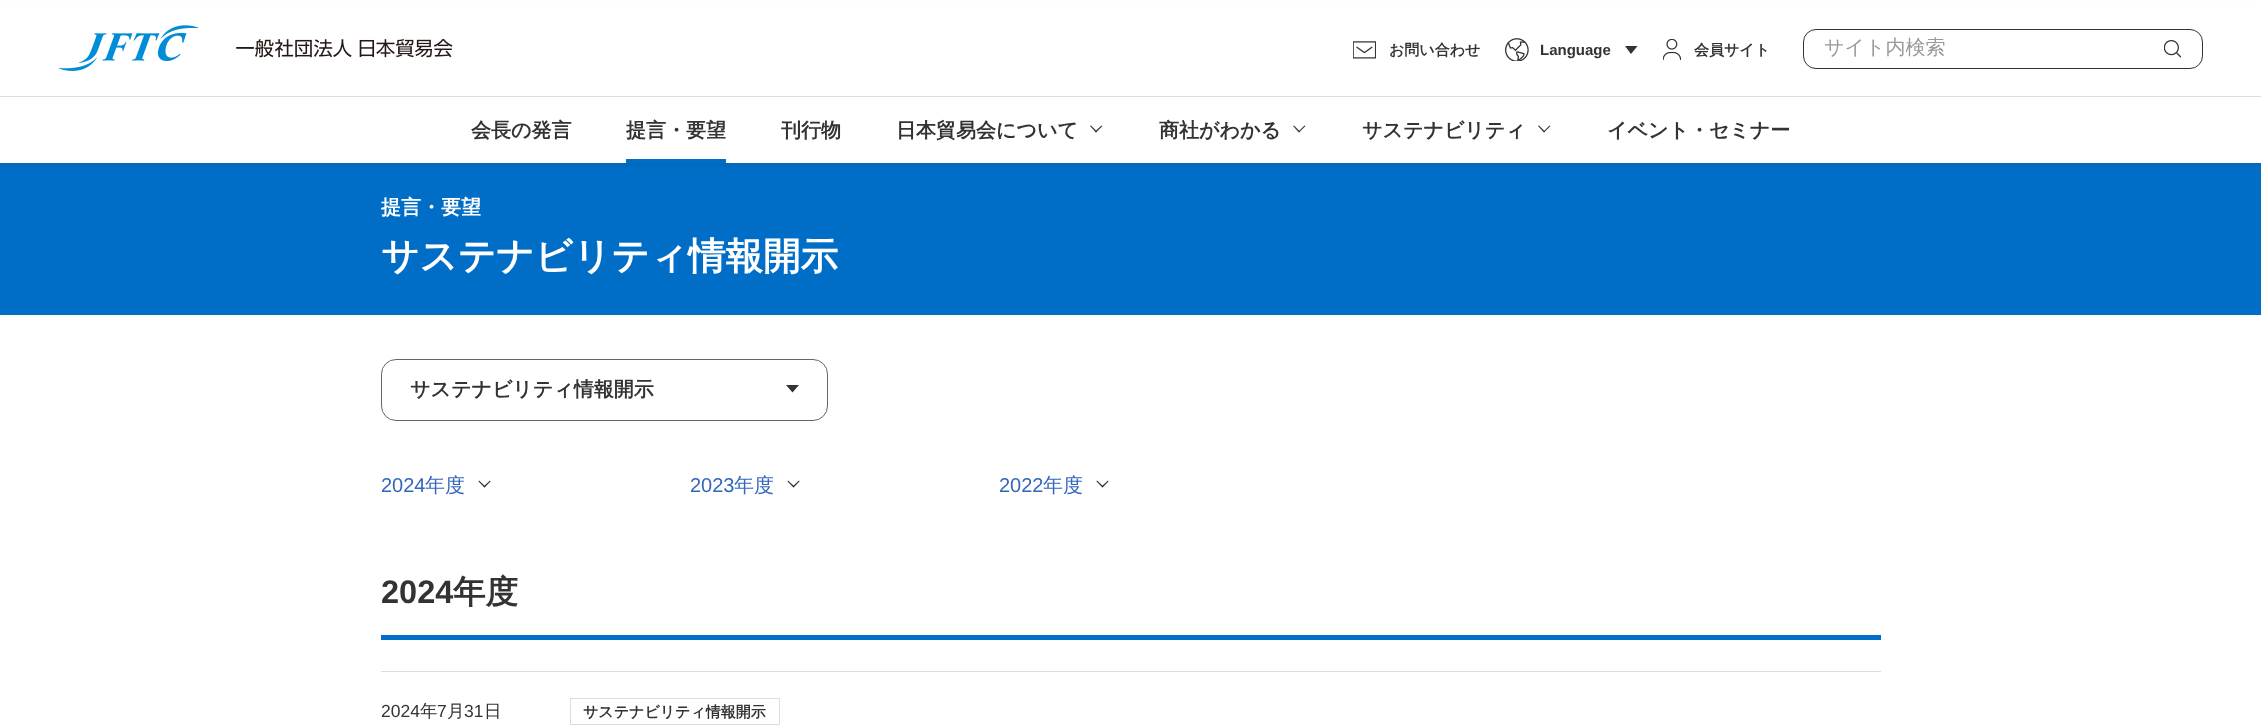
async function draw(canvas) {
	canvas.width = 2261;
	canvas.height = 728;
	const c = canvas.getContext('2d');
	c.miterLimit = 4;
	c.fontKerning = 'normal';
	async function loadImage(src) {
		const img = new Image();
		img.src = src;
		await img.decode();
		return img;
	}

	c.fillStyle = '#fff';
	c.fillRect(0, 0, 2261, 728);
	c.fillStyle = '#006ec6';
	c.fillRect(0, 163, 2261, 152);
	c.fillStyle = '#0000000d';
	c.filter = 'blur(2px)';
	c.beginPath();
	c.rect(0, 4, 2261, 162);
	c.fill();
	c.filter = 'none';
	c.fillStyle = '#fff';
	c.fillRect(0, 2, 2261, 161);
	c.drawImage(await loadImage('img1.png'), 59, 25, 140, 46);
	c.drawImage(await loadImage('img2.png'), 236, 39, 217, 19);
	c.drawImage(await loadImage('img3.png'), 1353, 41, 23, 18);
	c.font = 'bold 15px WenQuanYi Zen Hei';
	c.fillStyle = '#333';
	c.fillText('お問い合わせ', 1389, 55);
	c.drawImage(await loadImage('img4.png'), 1505, 38, 24, 23);
	c.font = 'bold 15px Liberation Sans';
	c.fillText('Language', 1540, 55);
	c.beginPath();
	c.moveTo(1625, 46);
	c.lineTo(1637.5, 46);
	c.lineTo(1631, 54);
	c.closePath();
	c.fill();
	c.drawImage(await loadImage('img5.png'), 1663, 39, 18, 21);
	c.font = 'bold 15px WenQuanYi Zen Hei';
	c.fillText('会員サイト', 1694, 55);
	c.beginPath();
	c.roundRect(1803.5, 29.5, 399, 39, 12.5);
	c.strokeStyle = '#333';
	c.stroke();
	c.font = '500 20px WenQuanYi Zen Hei';
	c.fillStyle = '#999';
	c.fillText('サイト内検索', 1824, 54);
	c.drawImage(await loadImage('img6.png'), 2164, 40, 17, 18);
	c.fillStyle = '#ddd';
	c.fillRect(0, 96, 2261, 1);
	c.font = 'bold 20px WenQuanYi Zen Hei';
	c.fillStyle = '#333';
	c.fillText('会長の発言', 471, 137);
	c.fillText('提言・要望', 626, 137);
	c.fillStyle = '#006ec6';
	c.fillRect(626, 159, 100, 4);
	c.fillStyle = '#333';
	c.fillText('刊行物', 781, 137);
	c.fillText('日本貿易会について', 896, 137);
	c.beginPath();
	c.moveTo(1102.5, 126);
	c.lineTo(1096, 132.5);
	c.lineTo(1095, 131.5);
	c.lineTo(1101.5, 125.5);
	c.closePath();
	c.fill();
	c.beginPath();
	c.moveTo(1097, 131.5);
	c.lineTo(1096, 132.5);
	c.lineTo(1090, 126);
	c.lineTo(1091, 125.5);
	c.closePath();
	c.fill();
	c.fillText('商社がわかる', 1159, 137);
	c.beginPath();
	c.moveTo(1305.5, 126);
	c.lineTo(1299, 132.5);
	c.lineTo(1298.5, 131.5);
	c.lineTo(1304.5, 125.5);
	c.closePath();
	c.fill();
	c.beginPath();
	c.moveTo(1300, 131.5);
	c.lineTo(1299, 132.5);
	c.lineTo(1293, 126);
	c.lineTo(1294, 125.5);
	c.closePath();
	c.fill();
	c.fillText('サステナビリティ', 1362, 137);
	c.beginPath();
	c.moveTo(1550.5, 126);
	c.lineTo(1544, 132.5);
	c.lineTo(1543.5, 131.5);
	c.lineTo(1549.5, 125.5);
	c.closePath();
	c.fill();
	c.beginPath();
	c.moveTo(1545, 131.5);
	c.lineTo(1544, 132.5);
	c.lineTo(1538, 126);
	c.lineTo(1539, 125.5);
	c.closePath();
	c.fill();
	c.fillText('イベント・セミナー', 1607, 137);
	c.fillStyle = '#fff';
	c.fillText('提言・要望', 381, 214);
	c.font = 'bold 37.5px WenQuanYi Zen Hei';
	c.fillText('サステナビリティ情報開示', 381, 269);
	c.beginPath();
	c.roundRect(381.5, 359.5, 446, 61, 14.5);
	c.strokeStyle = '#666';
	c.stroke();
	c.font = 'bold 20px WenQuanYi Zen Hei';
	c.fillStyle = '#333';
	c.fillText('サステナビリティ情報開示', 410, 396);
	c.beginPath();
	c.moveTo(786, 385);
	c.lineTo(799, 385);
	c.lineTo(792.5, 392.5);
	c.closePath();
	c.fill();
	c.font = '20px Liberation Sans';
	c.fillStyle = '#36b';
	c.fillText('2024', 381, 492);
	c.font = '500 20px WenQuanYi Zen Hei';
	c.fillText('年度', 425, 492);
	c.fillStyle = '#333';
	c.beginPath();
	c.moveTo(490.5, 481.5);
	c.lineTo(484.5, 487.5);
	c.lineTo(483.5, 486.5);
	c.lineTo(490, 480.5);
	c.closePath();
	c.fill();
	c.beginPath();
	c.moveTo(485.5, 486.5);
	c.lineTo(484.5, 487.5);
	c.lineTo(478.5, 481.5);
	c.lineTo(479, 480.5);
	c.closePath();
	c.fill();
	c.font = '20px Liberation Sans';
	c.fillStyle = '#36b';
	c.fillText('2023', 690, 492);
	c.font = '500 20px WenQuanYi Zen Hei';
	c.fillText('年度', 734, 492);
	c.fillStyle = '#333';
	c.beginPath();
	c.moveTo(799.5, 481.5);
	c.lineTo(793.5, 487.5);
	c.lineTo(792.5, 486.5);
	c.lineTo(799, 480.5);
	c.closePath();
	c.fill();
	c.beginPath();
	c.moveTo(794.5, 486.5);
	c.lineTo(793.5, 487.5);
	c.lineTo(787.5, 481.5);
	c.lineTo(788, 480.5);
	c.closePath();
	c.fill();
	c.font = '20px Liberation Sans';
	c.fillStyle = '#36b';
	c.fillText('2022', 999, 492);
	c.font = '500 20px WenQuanYi Zen Hei';
	c.fillText('年度', 1043, 492);
	c.fillStyle = '#333';
	c.beginPath();
	c.moveTo(1108.5, 481.5);
	c.lineTo(1102.5, 487.5);
	c.lineTo(1101.5, 486.5);
	c.lineTo(1108, 480.5);
	c.closePath();
	c.fill();
	c.beginPath();
	c.moveTo(1103.5, 486.5);
	c.lineTo(1102.5, 487.5);
	c.lineTo(1096.5, 481.5);
	c.lineTo(1097, 480.5);
	c.closePath();
	c.fill();
	c.fillStyle = '#006ec6';
	c.fillRect(381, 635, 1500, 5);
	c.font = 'bold 32.5px Liberation Sans';
	c.fillStyle = '#333';
	c.fillText('2024', 381, 603);
	c.font = 'bold 32.5px WenQuanYi Zen Hei';
	c.fillText('年度', 453, 603);
	c.fillStyle = '#ddd';
	c.fillRect(381, 671, 1500, 1);
	c.font = '17.5px Liberation Sans';
	c.fillStyle = '#333';
	c.fillText('2024', 381, 717);
	c.font = '500 17.5px WenQuanYi Zen Hei';
	c.fillText('年', 420, 717);
	c.font = '17.5px Liberation Sans';
	c.fillText('7', 437, 717);
	c.font = '500 17.5px WenQuanYi Zen Hei';
	c.fillText('月', 447, 717);
	c.font = '17.5px Liberation Sans';
	c.fillText('31', 464, 717);
	c.font = '500 17.5px WenQuanYi Zen Hei';
	c.fillText('日', 484, 717);
	c.strokeStyle = '#ddd';
	c.strokeRect(570.5, 698.5, 209, 26);
	c.font = 'bold 15px WenQuanYi Zen Hei';
	c.fillText('サステナビリティ情報開示', 583, 717);
}

draw(document.querySelector('canvas'));
